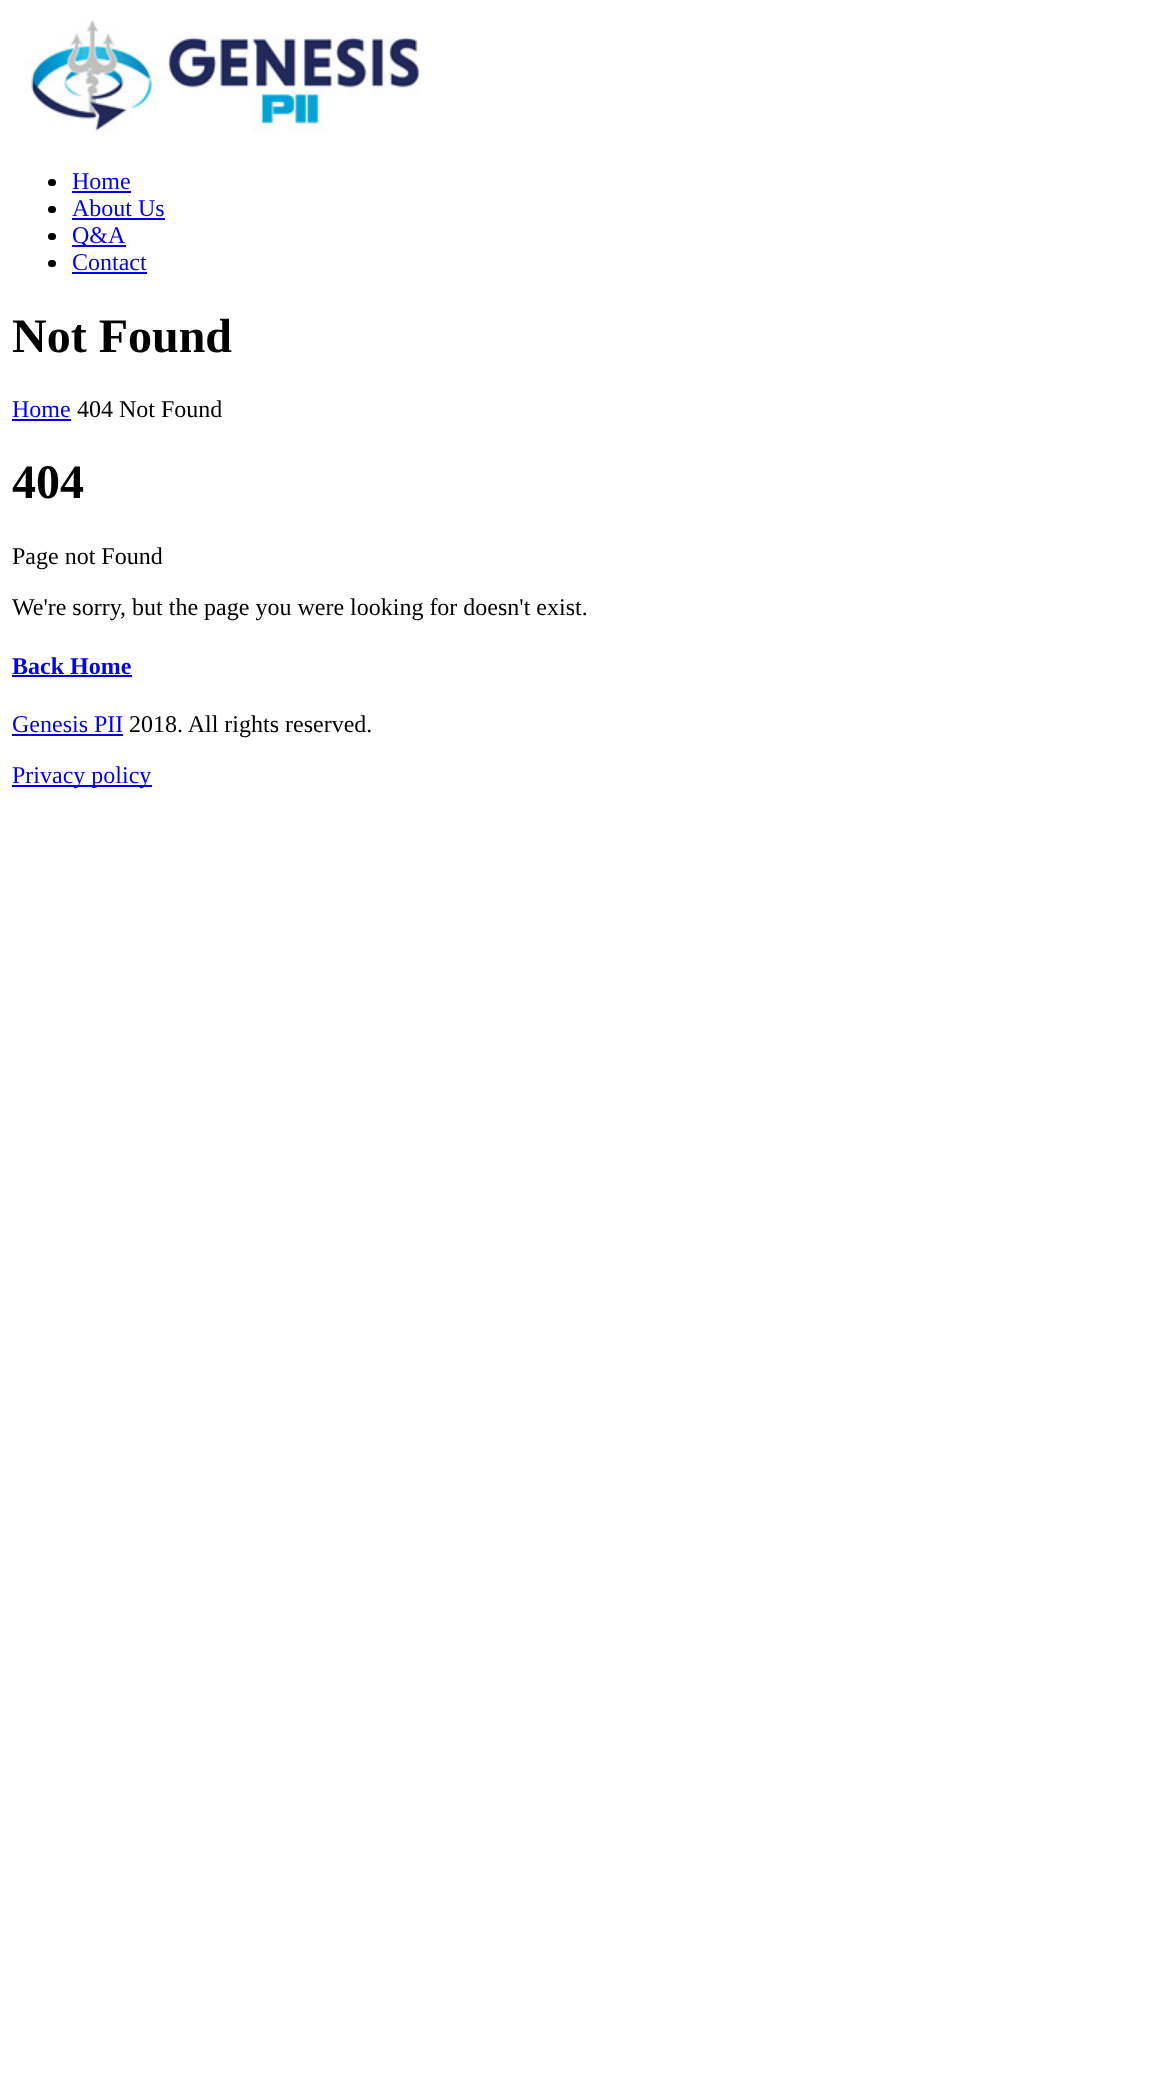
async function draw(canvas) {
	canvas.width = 1150;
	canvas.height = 2091;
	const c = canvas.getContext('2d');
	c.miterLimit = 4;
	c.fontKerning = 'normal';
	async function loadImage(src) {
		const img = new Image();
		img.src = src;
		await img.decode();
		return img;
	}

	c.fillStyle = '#fff';
	c.fillRect(0, 0, 1150, 2091);
	c.drawImage(await loadImage('img1.png'), 24, 19, 396, 113);
	c.fillStyle = '#000';
	c.beginPath();
	c.roundRect(48, 179, 8, 7, 3.5);
	c.fill();
	c.font = '24px Liberation Serif';
	c.fillStyle = '#00e';
	c.fillText('Home', 72, 189);
	c.fillRect(72, 191, 59, 2);
	c.fillStyle = '#000';
	c.beginPath();
	c.roundRect(48, 206, 8, 7, 3.5);
	c.fill();
	c.fillStyle = '#00e';
	c.fillText('About Us', 72, 216);
	c.fillRect(72, 218, 93, 2);
	c.fillStyle = '#000';
	c.beginPath();
	c.roundRect(48, 233, 8, 7, 3.5);
	c.fill();
	c.fillStyle = '#00e';
	c.fillRect(72, 245, 54, 2);
	c.fillText('Q&A', 72, 243);
	c.fillStyle = '#000';
	c.beginPath();
	c.roundRect(48, 260, 8, 7, 3.5);
	c.fill();
	c.fillStyle = '#00e';
	c.fillText('Contact', 72, 270);
	c.fillRect(72, 272, 75, 2);
	c.font = 'bold 48px Liberation Serif';
	c.fillStyle = '#000';
	c.fillText('Not Found', 12, 352);
	c.font = '24px Liberation Serif';
	c.fillStyle = '#00e';
	c.fillText('Home', 12, 417);
	c.fillRect(12, 419, 59, 2);
	c.fillStyle = '#000';
	c.fillText('404 Not Found', 77, 417);
	c.font = 'bold 48px Liberation Serif';
	c.fillText('404', 12, 498);
	c.font = '24px Liberation Serif';
	c.fillText('Page not Found', 12, 564);
	c.fillText('We\'re sorry, but the page you were looking for doesn\'t exist.', 12, 615);
	c.font = 'bold 24px Liberation Serif';
	c.fillStyle = '#00e';
	c.fillText('Back Home', 12, 674);
	c.fillRect(12, 675, 120, 2);
	c.font = '24px Liberation Serif';
	c.fillText('Genesis PII', 12, 732);
	c.fillRect(12, 734, 111, 2);
	c.fillStyle = '#000';
	c.fillText('2018. All rights reserved.', 129, 732);
	c.fillStyle = '#00e';
	c.fillRect(12, 785, 140, 2);
	c.fillText('Privacy policy', 12, 783);
}

draw(document.querySelector('canvas'));
